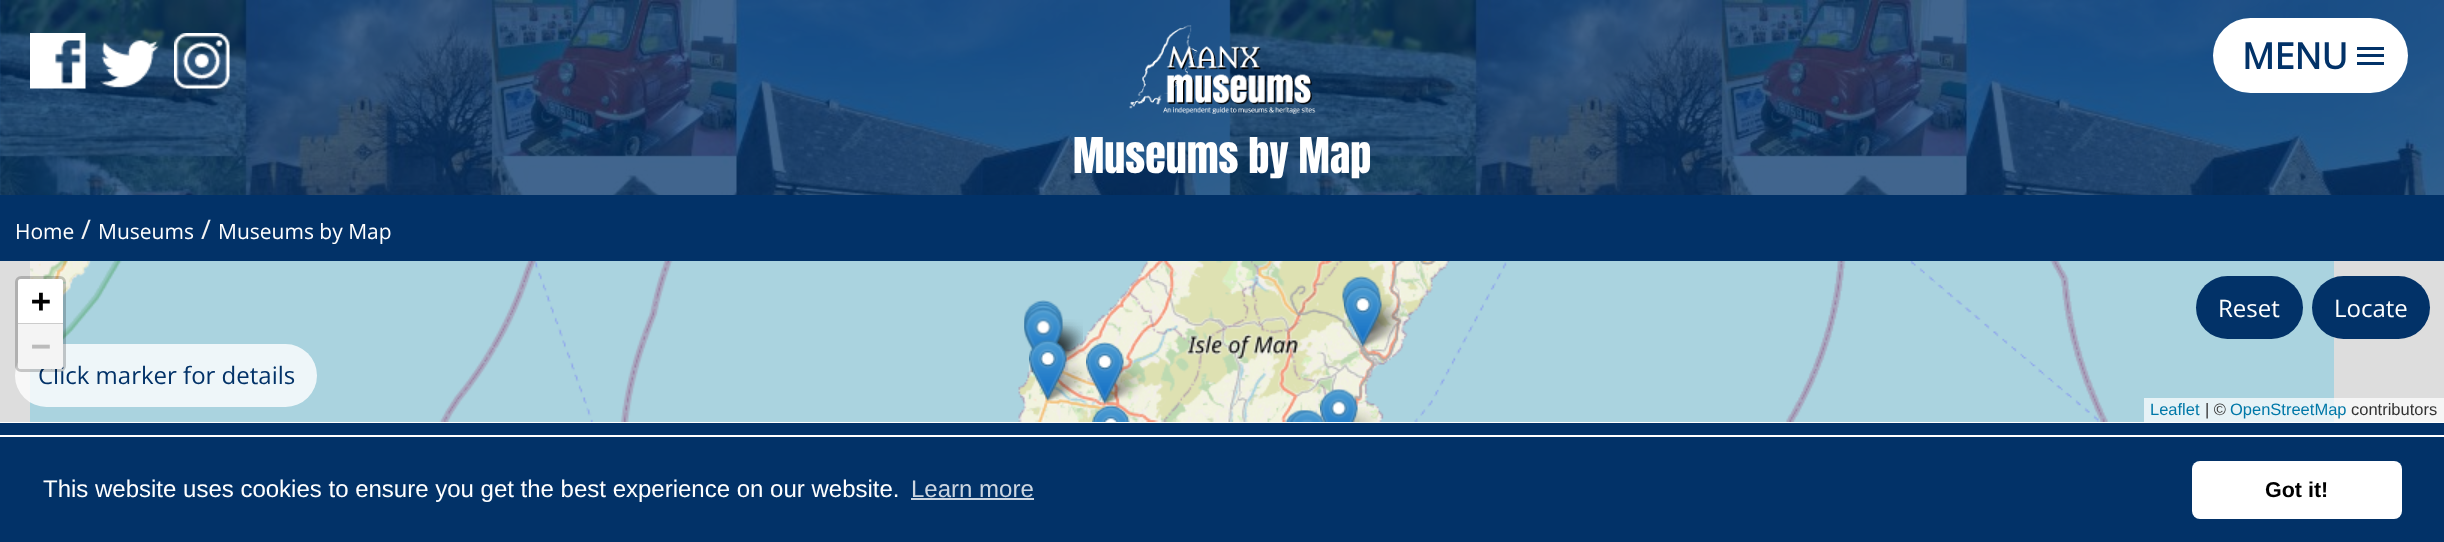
async function draw(canvas) {
	canvas.width = 2444;
	canvas.height = 542;
	const c = canvas.getContext('2d');
	c.miterLimit = 4;
	c.fontKerning = 'normal';
	async function loadImage(src) {
		const img = new Image();
		img.src = src;
		await img.decode();
		return img;
	}

	c.fillStyle = '#fff';
	c.fillRect(0, 0, 2444, 542);
	c.drawImage(await loadImage('img5.png'), 0, 0, 2444, 195);
	c.drawImage(await loadImage('img1.png'), 30, 33, 56, 56);
	c.drawImage(await loadImage('img2.png'), 100, 40, 59, 48);
	c.drawImage(await loadImage('img3.png'), 174, 33, 56, 56);
	c.drawImage(await loadImage('img4.png'), 1129, 25, 187, 89);
	c.beginPath();
	c.roundRect(2213, 18, 195, 75, 37.5);
	c.fill();
	c.font = 'bold 36px Open Sans';
	c.fillStyle = '#023268';
	c.fillText('MENU', 2242, 69);
	for (const [x, y, w, h, color] of [
		[2357, 54, 27, 3, '#023268'],
		[2357, 47, 27, 3, '#023268'],
		[2357, 62, 27, 3, '#023268'],
	]) {
		c.fillStyle = color;
		c.fillRect(x, y, w, h);
	}
	c.font = '42px Anton';
	c.fillStyle = '#fff';
	c.fillText('Museums by Map', 1073, 173);
	c.fillStyle = '#023268';
	c.fillRect(0, 195, 2444, 66);
	c.font = '21px Open Sans';
	c.fillStyle = '#fff';
	c.fillText('Home', 15, 239);
	c.font = '27px Open Sans';
	c.fillStyle = '#f2f2f2';
	c.fillText('/', 81, 239);
	c.font = '21px Open Sans';
	c.fillStyle = '#fff';
	c.fillText('Museums', 98, 239);
	c.font = '27px Open Sans';
	c.fillStyle = '#f2f2f2';
	c.fillText('/', 201, 239);
	c.font = '21px Open Sans';
	c.fillStyle = '#fff';
	c.fillText('Museums by Map', 218, 239);
	c.fillStyle = '#ddd';
	c.fillRect(0, 261, 2444, 161);
	c.drawImage(await loadImage('img6.png'), 30, 261, 384, 161);
	c.drawImage(await loadImage('img7.png'), 414, 261, 384, 161);
	c.drawImage(await loadImage('img8.png'), 798, 261, 384, 161);
	c.drawImage(await loadImage('img9.png'), 1182, 261, 384, 161);
	c.drawImage(await loadImage('img10.png'), 1566, 261, 384, 161);
	c.drawImage(await loadImage('img11.png'), 1950, 261, 384, 161);
	c.drawImage(await loadImage('img26.png'), 1357, 304, 46, 43);
	c.drawImage(await loadImage('img24.png'), 1359, 295, 42, 43);
	c.drawImage(await loadImage('img12.png'), 1342, 276, 39, 62);
	c.drawImage(await loadImage('img25.png'), 1054, 319, 29, 38);
	c.drawImage(await loadImage('img28.png'), 1054, 326, 29, 38);
	c.drawImage(await loadImage('img29.png'), 1054, 326, 29, 38);
	c.drawImage(await loadImage('img27.png'), 1054, 322, 29, 38);
	c.drawImage(await loadImage('img13.png'), 1024, 300, 39, 49);
	c.drawImage(await loadImage('img14.png'), 1344, 285, 38, 62);
	c.drawImage(await loadImage('img15.png'), 1024, 303, 39, 47);
	c.drawImage(await loadImage('img16.png'), 1024, 307, 39, 45);
	c.drawImage(await loadImage('img17.png'), 1024, 308, 39, 44);
	c.drawImage(await loadImage('img30.png'), 1042, 358, 46, 43);
	c.drawImage(await loadImage('img18.png'), 1029, 339, 38, 62);
	c.drawImage(await loadImage('img31.png'), 1099, 361, 46, 43);
	c.drawImage(await loadImage('img19.png'), 1086, 342, 38, 62);
	c.drawImage(await loadImage('img32.png'), 1351, 407, 27, 15);
	c.drawImage(await loadImage('img20.png'), 1320, 389, 38, 33);
	c.drawImage(await loadImage('img21.png'), 1092, 405, 38, 17);
	c.drawImage(await loadImage('img22.png'), 1285, 410, 36, 12);
	c.drawImage(await loadImage('img23.png'), 1289, 410, 36, 12);
	c.fillStyle = '#ffffffcc';
	c.beginPath();
	c.roundRect(15, 344, 302, 63, 31.5);
	c.fill();
	c.font = '24px Open Sans';
	c.fillStyle = '#023268';
	c.fillText('Click marker for details', 38, 384);
	c.beginPath();
	c.roundRect(16.5, 277.5, 48, 93, 4.5);
	c.strokeStyle = '#00000033';
	c.lineWidth = 3;
	c.stroke();
	c.fillStyle = '#fff';
	c.beginPath();
	c.roundRect(18, 279, 45, 45, [3, 3, 0, 0]);
	c.fill();
	c.fillStyle = '#ccc';
	c.fillRect(18, 323, 45, 1);
	c.font = 'bold 33px DejaVu Sans Mono';
	c.fillStyle = '#000';
	c.fillText('+', 31, 312);
	c.fillStyle = '#f4f4f4';
	c.beginPath();
	c.roundRect(18, 324, 45, 45, [0, 0, 3, 3]);
	c.fill();
	c.fillStyle = '#bbb';
	c.fillText('−', 31, 357);
	c.fillStyle = '#ffffffb3';
	c.fillRect(2144, 398, 300, 24);
	c.font = '16.5px Liberation Sans';
	c.fillStyle = '#0078a8';
	c.fillText('Leaflet', 2150, 415);
	c.fillStyle = '#333';
	c.fillText('| ©', 2205, 415);
	c.fillStyle = '#0078a8';
	c.fillText('OpenStreetMap', 2230, 415);
	c.fillStyle = '#333';
	c.fillText('contributors', 2351, 415);
	c.fillStyle = '#023268';
	c.beginPath();
	c.roundRect(2196, 276, 107, 63, 31.5);
	c.fill();
	c.font = '24px Open Sans';
	c.fillStyle = '#fff';
	c.fillText('Reset', 2218, 317);
	c.fillStyle = '#023268';
	c.beginPath();
	c.roundRect(2312, 276, 118, 63, 31.5);
	c.fill();
	c.fillStyle = '#fff';
	c.fillText('Locate', 2334, 317);
	c.fillStyle = '#023268';
	c.fillRect(0, 423, 2444, 12);
	c.fillRect(0, 437, 2444, 105);
	c.font = '24px Liberation Sans';
	c.fillStyle = '#fff';
	c.fillText('This website uses cookies to ensure you get the best experience on our website.', 43, 497);
	c.fillStyle = '#ccd6e1';
	c.fillText('Learn more', 911, 497);
	c.fillRect(911, 498, 123, 2);
	c.fillStyle = '#fff';
	c.beginPath();
	c.roundRect(2192, 461, 210, 58, 8);
	c.fill();
	c.font = 'bold 21.5px Liberation Sans';
	c.fillStyle = '#000';
	c.fillText('Got it!', 2265, 497);
}

draw(document.querySelector('canvas'));
